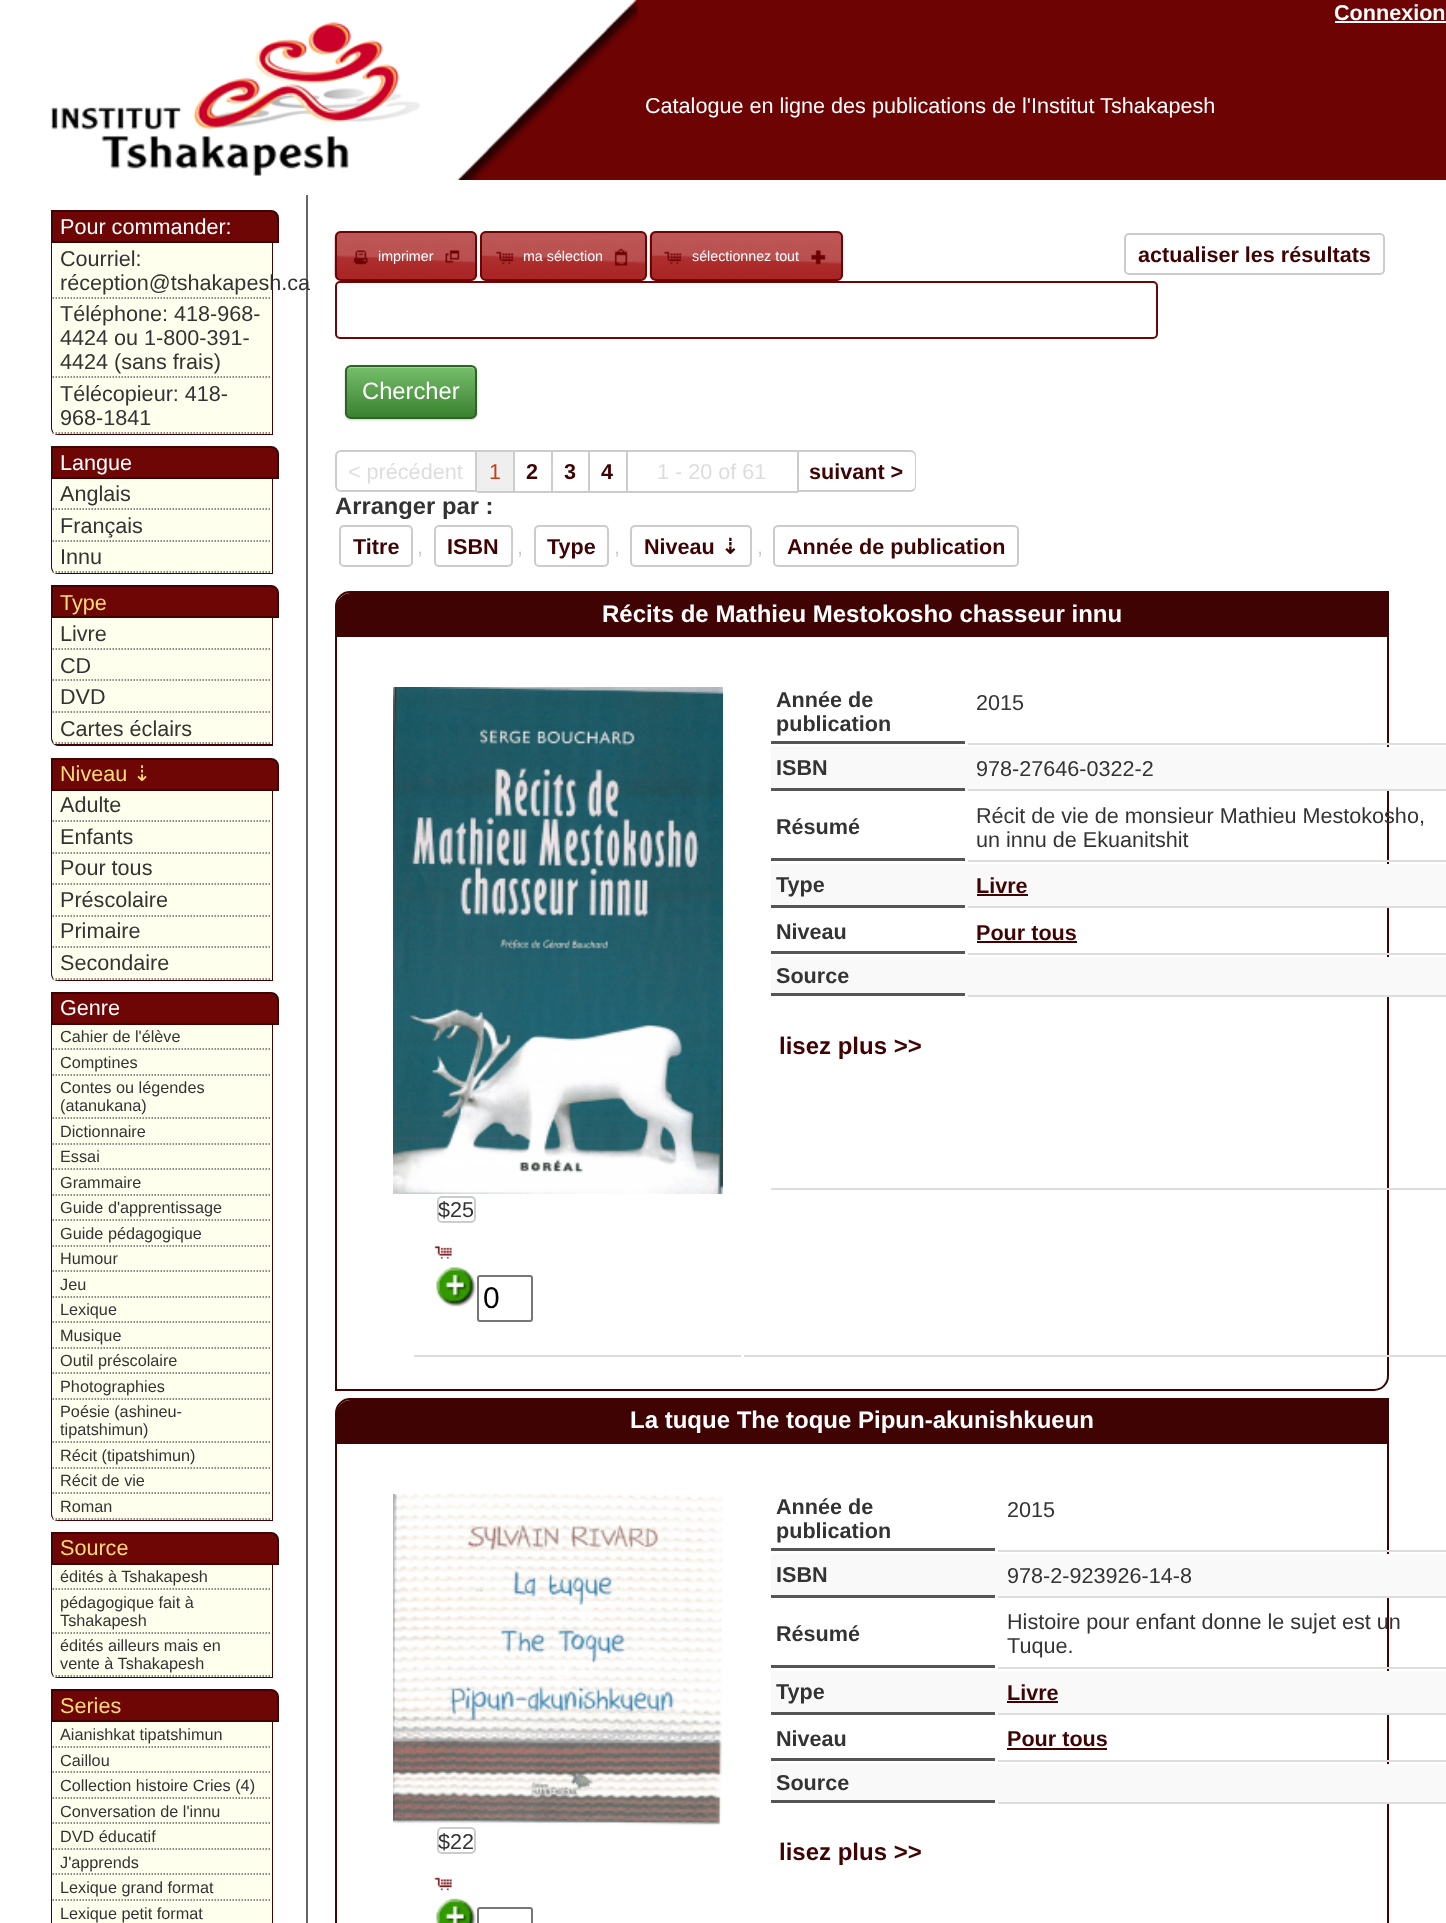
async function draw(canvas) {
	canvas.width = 1446;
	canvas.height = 1923;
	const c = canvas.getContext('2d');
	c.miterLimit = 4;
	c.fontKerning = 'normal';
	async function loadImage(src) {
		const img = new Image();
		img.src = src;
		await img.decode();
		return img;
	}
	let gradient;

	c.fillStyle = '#6e0303';
	c.fillRect(0, 0, 1446, 1923);
	c.font = 'bold 21.6px Liberation Sans';
	c.fillStyle = '#fff';
	c.fillText('Connexion', 1334, 20);
	c.fillRect(1335, 21, 111, 2);
	c.drawImage(await loadImage('img1.png'), 0, 0, 638, 180);
	c.font = '21.6px Liberation Sans';
	c.fillText('Catalogue en ligne des publications de l\'Institut Tshakapesh', 645, 113);
	c.fillRect(0, 180, 1446, 1743);
	c.fillStyle = '#6f0606';
	c.beginPath();
	c.roundRect(52, 211, 226, 31, [0, 7, 0, 0]);
	c.fill();
	c.strokeStyle = '#3f0303';
	c.lineWidth = 2;
	c.stroke();
	c.fillStyle = '#fff';
	c.fillText('Pour commander:', 60, 234);
	c.fillStyle = '#3f0303';
	c.beginPath();
	c.moveTo(51, 243);
	c.lineTo(273, 243);
	c.lineTo(273, 435);
	c.lineTo(58, 435);
	c.bezierCurveTo(54, 435, 51, 432, 51, 428);
	c.closePath();
	c.moveTo(52, 243);
	c.lineTo(272, 243);
	c.lineTo(272, 434);
	c.lineTo(58, 434);
	c.bezierCurveTo(55, 434, 52, 431, 52, 428);
	c.closePath();
	c.fill('evenodd');
	c.fillStyle = '#ffe';
	c.fillRect(53, 243, 219, 191);
	c.beginPath();
	c.moveTo(52.5, 298);
	c.lineTo(271.5, 298);
	c.strokeStyle = '#666';
	c.lineWidth = 1.5;
	c.setLineDash([1.5, 1.5]);
	c.stroke();
	c.fillStyle = '#333';
	c.fillText('Courriel:', 60, 266);
	c.fillStyle = '#666';
	c.fillRect(306, 195, 2, 1728);
	c.fillStyle = '#333';
	c.fillText('réception@tshakapesh.ca', 60, 290);
	c.beginPath();
	c.moveTo(52.5, 377);
	c.lineTo(271.5, 377);
	c.stroke();
	for (const [text, x, y] of [
		['Téléphone: 418-968-', 60, 321],
		['4424 ou 1-800-391-', 60, 345],
		['4424 (sans frais)', 60, 369],
	]) {
		c.fillText(text, x, y);
	}
	c.beginPath();
	c.moveTo(52.5, 433);
	c.lineTo(271.5, 433);
	c.stroke();
	c.fillText('Télécopieur: 418-', 60, 401);
	c.fillText('968-1841', 60, 425);
	c.fillStyle = '#3f0303';
	c.beginPath();
	c.moveTo(51, 478);
	c.lineTo(273, 478);
	c.lineTo(273, 574);
	c.lineTo(58, 574);
	c.bezierCurveTo(54, 574, 51, 571, 51, 567);
	c.closePath();
	c.moveTo(52, 478);
	c.lineTo(272, 478);
	c.lineTo(272, 573);
	c.lineTo(58, 573);
	c.bezierCurveTo(55, 573, 52, 570, 52, 567);
	c.closePath();
	c.fill('evenodd');
	c.fillStyle = '#6f0606';
	c.beginPath();
	c.roundRect(52, 447, 226, 31, [0, 7, 0, 0]);
	c.fill();
	c.strokeStyle = '#3f0303';
	c.lineWidth = 2;
	c.setLineDash([]);
	c.stroke();
	c.fillStyle = '#fff';
	c.fillText('Langue', 60, 470);
	c.fillStyle = '#ffe';
	c.fillRect(53, 479, 219, 94);
	c.beginPath();
	c.moveTo(52.5, 509);
	c.lineTo(271.5, 509);
	c.strokeStyle = '#666';
	c.lineWidth = 1.5;
	c.setLineDash([1.5, 1.5]);
	c.stroke();
	c.fillStyle = '#333';
	c.fillText('Anglais', 60, 501);
	c.beginPath();
	c.moveTo(52.5, 541);
	c.lineTo(271.5, 541);
	c.stroke();
	c.fillText('Français', 60, 533);
	c.beginPath();
	c.moveTo(52.5, 572);
	c.lineTo(271.5, 572);
	c.stroke();
	c.fillText('Innu', 60, 564);
	c.fillStyle = '#6f0606';
	c.beginPath();
	c.roundRect(52, 586, 226, 31, [0, 7, 0, 0]);
	c.fill();
	c.strokeStyle = '#3f0303';
	c.lineWidth = 2;
	c.setLineDash([]);
	c.stroke();
	c.fillStyle = '#fd7';
	c.fillText('Type', 60, 610);
	c.fillStyle = '#3f0303';
	c.beginPath();
	c.moveTo(51, 618);
	c.lineTo(273, 618);
	c.lineTo(273, 746);
	c.lineTo(58, 746);
	c.bezierCurveTo(54, 746, 51, 742, 51, 738);
	c.closePath();
	c.moveTo(52, 618);
	c.lineTo(272, 618);
	c.lineTo(272, 744);
	c.lineTo(58, 744);
	c.bezierCurveTo(55, 744, 52, 741, 52, 738);
	c.closePath();
	c.fill('evenodd');
	c.fillStyle = '#ffe';
	c.fillRect(53, 618, 219, 126);
	c.beginPath();
	c.moveTo(52.5, 649);
	c.lineTo(271.5, 649);
	c.strokeStyle = '#666';
	c.lineWidth = 1.5;
	c.setLineDash([1.5, 1.5]);
	c.stroke();
	c.fillStyle = '#333';
	c.fillText('Livre', 60, 641);
	c.beginPath();
	c.moveTo(52.5, 680);
	c.lineTo(271.5, 680);
	c.stroke();
	c.fillText('CD', 60, 673);
	c.beginPath();
	c.moveTo(52.5, 712);
	c.lineTo(271.5, 712);
	c.stroke();
	c.fillText('DVD', 60, 704);
	c.beginPath();
	c.moveTo(52.5, 743);
	c.lineTo(271.5, 743);
	c.stroke();
	c.fillText('Cartes éclairs', 60, 736);
	c.fillStyle = '#3f0303';
	c.beginPath();
	c.moveTo(51, 790);
	c.lineTo(273, 790);
	c.lineTo(273, 981);
	c.lineTo(58, 981);
	c.bezierCurveTo(54, 981, 51, 978, 51, 974);
	c.closePath();
	c.moveTo(52, 790);
	c.lineTo(272, 790);
	c.lineTo(272, 980);
	c.lineTo(58, 980);
	c.bezierCurveTo(55, 980, 52, 977, 52, 974);
	c.closePath();
	c.fill('evenodd');
	c.fillStyle = '#6f0606';
	c.beginPath();
	c.roundRect(52, 759, 226, 31, [0, 7, 0, 0]);
	c.fill();
	c.strokeStyle = '#3f0303';
	c.lineWidth = 2;
	c.setLineDash([]);
	c.stroke();
	c.fillStyle = '#fd7';
	c.fillText('Niveau', 60, 781);
	c.font = '21.6px DejaVu Sans';
	c.fillText('⇣', 133, 781);
	c.fillStyle = '#ffe';
	c.fillRect(53, 791, 219, 189);
	c.beginPath();
	c.moveTo(52.5, 821);
	c.lineTo(271.5, 821);
	c.strokeStyle = '#666';
	c.lineWidth = 1.5;
	c.setLineDash([1.5, 1.5]);
	c.stroke();
	c.font = '21.6px Liberation Sans';
	c.fillStyle = '#333';
	c.fillText('Adulte', 60, 812);
	c.beginPath();
	c.moveTo(52.5, 853);
	c.lineTo(271.5, 853);
	c.stroke();
	c.fillText('Enfants', 60, 844);
	c.beginPath();
	c.moveTo(52.5, 884);
	c.lineTo(271.5, 884);
	c.stroke();
	c.fillText('Pour tous', 60, 875);
	c.beginPath();
	c.moveTo(52.5, 916);
	c.lineTo(271.5, 916);
	c.stroke();
	c.fillText('Préscolaire', 60, 907);
	c.beginPath();
	c.moveTo(52.5, 947);
	c.lineTo(271.5, 947);
	c.stroke();
	c.fillText('Primaire', 60, 938);
	c.beginPath();
	c.moveTo(52.5, 979);
	c.lineTo(271.5, 979);
	c.stroke();
	c.fillText('Secondaire', 60, 970);
	c.fillStyle = '#3f0303';
	c.beginPath();
	c.moveTo(51, 1024);
	c.lineTo(273, 1024);
	c.lineTo(273, 1521);
	c.lineTo(58, 1521);
	c.bezierCurveTo(54, 1521, 51, 1518, 51, 1514);
	c.closePath();
	c.moveTo(52, 1024);
	c.lineTo(272, 1024);
	c.lineTo(272, 1520);
	c.lineTo(58, 1520);
	c.bezierCurveTo(55, 1520, 52, 1517, 52, 1514);
	c.closePath();
	c.fill('evenodd');
	c.fillStyle = '#6f0606';
	c.beginPath();
	c.roundRect(52, 993, 226, 31, [0, 7, 0, 0]);
	c.fill();
	c.strokeStyle = '#3f0303';
	c.lineWidth = 2;
	c.setLineDash([]);
	c.stroke();
	c.fillStyle = '#fff';
	c.fillText('Genre', 60, 1015);
	c.fillStyle = '#ffe';
	c.fillRect(53, 1025, 219, 495);
	c.beginPath();
	c.moveTo(52.5, 1049);
	c.lineTo(271.5, 1049);
	c.strokeStyle = '#666';
	c.lineWidth = 1.5;
	c.setLineDash([1.5, 1.5]);
	c.stroke();
	c.font = '16.25px Liberation Sans';
	c.fillStyle = '#333';
	c.fillText('Cahier de l\'élève', 60, 1042);
	c.beginPath();
	c.moveTo(52.5, 1075);
	c.lineTo(271.5, 1075);
	c.stroke();
	c.fillText('Comptines', 60, 1068);
	c.beginPath();
	c.moveTo(52.5, 1118);
	c.lineTo(271.5, 1118);
	c.stroke();
	c.fillText('Contes ou légendes', 60, 1093);
	c.fillText('(atanukana)', 60, 1111);
	c.beginPath();
	c.moveTo(52.5, 1144);
	c.lineTo(271.5, 1144);
	c.stroke();
	c.fillText('Dictionnaire', 60, 1137);
	c.beginPath();
	c.moveTo(52.5, 1169);
	c.lineTo(271.5, 1169);
	c.stroke();
	c.fillText('Essai', 60, 1162);
	c.beginPath();
	c.moveTo(52.5, 1195);
	c.lineTo(271.5, 1195);
	c.stroke();
	c.fillText('Grammaire', 60, 1188);
	c.beginPath();
	c.moveTo(52.5, 1220);
	c.lineTo(271.5, 1220);
	c.stroke();
	c.fillText('Guide d\'apprentissage', 60, 1213);
	c.beginPath();
	c.moveTo(52.5, 1246);
	c.lineTo(271.5, 1246);
	c.stroke();
	c.fillText('Guide pédagogique', 60, 1239);
	c.beginPath();
	c.moveTo(52.5, 1271);
	c.lineTo(271.5, 1271);
	c.stroke();
	c.fillText('Humour', 60, 1264);
	c.beginPath();
	c.moveTo(52.5, 1297);
	c.lineTo(271.5, 1297);
	c.stroke();
	c.fillText('Jeu', 60, 1290);
	c.beginPath();
	c.moveTo(52.5, 1322);
	c.lineTo(271.5, 1322);
	c.stroke();
	c.fillText('Lexique', 60, 1315);
	c.beginPath();
	c.moveTo(52.5, 1348);
	c.lineTo(271.5, 1348);
	c.stroke();
	c.fillText('Musique', 60, 1341);
	c.beginPath();
	c.moveTo(52.5, 1373);
	c.lineTo(271.5, 1373);
	c.stroke();
	c.fillText('Outil préscolaire', 60, 1366);
	c.beginPath();
	c.moveTo(52.5, 1399);
	c.lineTo(271.5, 1399);
	c.stroke();
	c.fillText('Photographies', 60, 1392);
	c.beginPath();
	c.moveTo(52.5, 1442);
	c.lineTo(271.5, 1442);
	c.stroke();
	c.fillText('Poésie (ashineu-', 60, 1417);
	c.fillText('tipatshimun)', 60, 1435);
	c.beginPath();
	c.moveTo(52.5, 1468);
	c.lineTo(271.5, 1468);
	c.stroke();
	c.fillText('Récit (tipatshimun)', 60, 1461);
	c.beginPath();
	c.moveTo(52.5, 1493);
	c.lineTo(271.5, 1493);
	c.stroke();
	c.fillText('Récit de vie', 60, 1486);
	c.beginPath();
	c.moveTo(52.5, 1519);
	c.lineTo(271.5, 1519);
	c.stroke();
	c.fillText('Roman', 60, 1512);
	c.fillStyle = '#3f0303';
	c.beginPath();
	c.moveTo(51, 1564);
	c.lineTo(273, 1564);
	c.lineTo(273, 1678);
	c.lineTo(58, 1678);
	c.bezierCurveTo(54, 1678, 51, 1675, 51, 1671);
	c.closePath();
	c.moveTo(52, 1564);
	c.lineTo(272, 1564);
	c.lineTo(272, 1677);
	c.lineTo(58, 1677);
	c.bezierCurveTo(55, 1677, 52, 1674, 52, 1671);
	c.closePath();
	c.fill('evenodd');
	c.fillStyle = '#6f0606';
	c.beginPath();
	c.roundRect(52, 1533, 226, 31, [0, 7, 0, 0]);
	c.fill();
	c.strokeStyle = '#3f0303';
	c.lineWidth = 2;
	c.setLineDash([]);
	c.stroke();
	c.font = '21.6px Liberation Sans';
	c.fillStyle = '#fd7';
	c.fillText('Source', 60, 1555);
	c.fillStyle = '#ffe';
	c.fillRect(53, 1565, 219, 112);
	c.beginPath();
	c.moveTo(52.5, 1589);
	c.lineTo(271.5, 1589);
	c.strokeStyle = '#666';
	c.lineWidth = 1.5;
	c.setLineDash([1.5, 1.5]);
	c.stroke();
	c.font = '16.25px Liberation Sans';
	c.fillStyle = '#333';
	c.fillText('édités à Tshakapesh', 60, 1582);
	c.beginPath();
	c.moveTo(52.5, 1633);
	c.lineTo(271.5, 1633);
	c.stroke();
	c.fillText('pédagogique fait à', 60, 1608);
	c.fillText('Tshakapesh', 60, 1626);
	c.beginPath();
	c.moveTo(52.5, 1676);
	c.lineTo(271.5, 1676);
	c.stroke();
	c.fillText('édités ailleurs mais en', 60, 1651);
	c.fillText('vente à Tshakapesh', 60, 1669);
	c.fillStyle = '#6f0606';
	c.beginPath();
	c.roundRect(52, 1690, 226, 31, [0, 7, 0, 0]);
	c.fill();
	c.strokeStyle = '#3f0303';
	c.lineWidth = 2;
	c.setLineDash([]);
	c.stroke();
	c.font = '21.6px Liberation Sans';
	c.fillStyle = '#fd7';
	c.fillText('Series', 60, 1713);
	c.fillStyle = '#3f0303';
	c.beginPath();
	c.moveTo(51, 1722);
	c.lineTo(273, 1722);
	c.lineTo(273, 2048);
	c.lineTo(58, 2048);
	c.bezierCurveTo(54, 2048, 51, 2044, 51, 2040);
	c.closePath();
	c.moveTo(52, 1722);
	c.lineTo(272, 1722);
	c.lineTo(272, 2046);
	c.lineTo(58, 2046);
	c.bezierCurveTo(55, 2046, 52, 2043, 52, 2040);
	c.closePath();
	c.fill('evenodd');
	c.fillStyle = '#ffe';
	c.fillRect(53, 1722, 219, 201);
	c.beginPath();
	c.moveTo(52.5, 1747);
	c.lineTo(271.5, 1747);
	c.strokeStyle = '#666';
	c.lineWidth = 1.5;
	c.setLineDash([1.5, 1.5]);
	c.stroke();
	c.font = '16.25px Liberation Sans';
	c.fillStyle = '#333';
	c.fillText('Aianishkat tipatshimun', 60, 1740);
	c.beginPath();
	c.moveTo(52.5, 1772);
	c.lineTo(271.5, 1772);
	c.stroke();
	c.fillText('Caillou', 60, 1766);
	c.beginPath();
	c.moveTo(52.5, 1798);
	c.lineTo(271.5, 1798);
	c.stroke();
	c.fillText('Collection histoire Cries (4)', 60, 1791);
	c.beginPath();
	c.moveTo(52.5, 1823);
	c.lineTo(271.5, 1823);
	c.stroke();
	c.fillText('Conversation de l\'innu', 60, 1817);
	c.beginPath();
	c.moveTo(52.5, 1849);
	c.lineTo(271.5, 1849);
	c.stroke();
	c.fillText('DVD éducatif', 60, 1842);
	c.beginPath();
	c.moveTo(52.5, 1874);
	c.lineTo(271.5, 1874);
	c.stroke();
	c.fillText('J\'apprends', 60, 1868);
	c.beginPath();
	c.moveTo(52.5, 1900);
	c.lineTo(271.5, 1900);
	c.stroke();
	c.fillText('Lexique grand format', 60, 1893);
	c.fillText('Lexique petit format', 60, 1919);
	c.drawImage(await loadImage('img2.png'), 334, 231, 143, 50);
	c.beginPath();
	c.roundRect(336, 232, 140, 48, 5);
	c.strokeStyle = '#6e0303';
	c.lineWidth = 2;
	c.setLineDash([]);
	c.stroke();
	c.drawImage(await loadImage('img3.png'), 353, 250, 15, 15);
	c.font = '14.25px Liberation Sans';
	c.fillStyle = '#fff';
	c.fillText('imprimer', 378, 261);
	c.drawImage(await loadImage('img4.png'), 445, 250, 15, 13);
	c.drawImage(await loadImage('img5.png'), 480, 231, 167, 50);
	c.beginPath();
	c.roundRect(481, 232, 165, 48, 5);
	c.stroke();
	c.drawImage(await loadImage('img6.png'), 496, 251, 18, 14);
	c.fillText('ma sélection', 523, 261);
	c.drawImage(await loadImage('img7.png'), 614, 248, 14, 18);
	c.drawImage(await loadImage('img8.png'), 649, 231, 194, 50);
	c.beginPath();
	c.roundRect(651, 232, 191, 48, 5);
	c.stroke();
	c.drawImage(await loadImage('img9.png'), 664, 251, 18, 14);
	c.fillText('sélectionnez tout', 692, 261);
	c.drawImage(await loadImage('img10.png'), 811, 250, 15, 15);
	c.beginPath();
	c.roundRect(1125, 234, 259, 40, 4);
	c.strokeStyle = '#ccc';
	c.stroke();
	c.font = 'bold 21.6px Liberation Sans';
	c.fillStyle = '#3f0303';
	c.fillText('actualiser les résultats', 1138, 262);
	c.beginPath();
	c.roundRect(336, 282, 821, 56, 4);
	c.strokeStyle = '#6f0606';
	c.stroke();
	c.fillStyle = '#00000033';
	c.filter = 'blur(1px)';
	c.beginPath();
	c.roundRect(345, 366, 132, 54, 6);
	c.fill();
	c.filter = 'none';
	c.save();
	c.beginPath();
	c.roundRect(345, 365, 132, 54, 6);
	c.clip();
	gradient = c.createLinearGradient(411, 366, 411, 417);
	gradient.addColorStop(0, '#76bf6b');
	gradient.addColorStop(1, '#3b8230');
	c.fillStyle = gradient;
	c.fillRect(345, 366, 132, 51);
	c.restore();
	c.fillStyle = '#ffffff4d';
	c.beginPath();
	c.moveTo(351, 368);
	c.lineTo(471, 368);
	c.bezierCurveTo(473, 368, 476, 370, 476, 372);
	c.lineTo(476, 371);
	c.bezierCurveTo(476, 368, 474, 366, 471, 366);
	c.lineTo(352, 366);
	c.bezierCurveTo(350, 366, 348, 368, 347, 370);
	c.bezierCurveTo(348, 369, 350, 368, 351, 368);
	c.closePath();
	c.fill();
	c.beginPath();
	c.roundRect(346, 366, 130, 52, 5);
	c.strokeStyle = '#2d6324';
	c.stroke();
	c.font = '23.75px Liberation Sans';
	c.fillStyle = '#fff';
	c.fillText('Chercher', 362, 399);
	c.beginPath();
	c.roundRect(336, 451, 140, 40, [5, 0, 0, 5]);
	c.strokeStyle = '#ccc';
	c.stroke();
	c.font = '21.6px Liberation Sans';
	c.fillStyle = '#ddd';
	c.fillText('< précédent', 348, 479);
	for (const [x, y, w, h, color] of [
		[477, 452, 36, 39, '#efefef'],
		[477, 450, 75, 2, '#ccc'],
		[513, 450, 2, 42, '#ccc'],
		[477, 491, 38, 2, '#ccc'],
	]) {
		c.fillStyle = color;
		c.fillRect(x, y, w, h);
	}
	c.fillStyle = '#c73e14';
	c.fillText('1', 489, 479);
	c.fillStyle = '#ccc';
	c.fillRect(551, 450, 2, 42);
	c.fillRect(515, 491, 37, 2);
	c.font = 'bold 21.6px Liberation Sans';
	c.fillStyle = '#3f0303';
	c.fillText('2', 526, 479);
	for (const [x, y, w, h, color] of [
		[552, 450, 75, 2, '#ccc'],
		[588, 450, 2, 42, '#ccc'],
		[552, 491, 38, 2, '#ccc'],
	]) {
		c.fillStyle = color;
		c.fillRect(x, y, w, h);
	}
	c.fillStyle = '#3f0303';
	c.fillText('3', 564, 479);
	c.fillStyle = '#ccc';
	c.fillRect(626, 450, 2, 42);
	c.fillRect(590, 491, 37, 2);
	c.fillStyle = '#3f0303';
	c.fillText('4', 601, 479);
	for (const [x, y, w, h, color] of [
		[627, 450, 171, 2, '#ccc'],
		[797, 450, 2, 42, '#ccc'],
		[627, 491, 171, 2, '#ccc'],
	]) {
		c.fillStyle = color;
		c.fillRect(x, y, w, h);
	}
	c.font = '21.6px Liberation Sans';
	c.fillStyle = '#ddd';
	c.fillText('1 - 20 of 61', 657, 479);
	c.fillStyle = '#ccc';
	c.beginPath();
	c.moveTo(798, 450);
	c.lineTo(910, 450);
	c.bezierCurveTo(914, 450, 916, 453, 916, 456);
	c.lineTo(916, 486);
	c.bezierCurveTo(916, 489, 914, 492, 910, 492);
	c.lineTo(798, 492);
	c.closePath();
	c.moveTo(798, 452);
	c.lineTo(910, 452);
	c.bezierCurveTo(913, 452, 915, 454, 915, 456);
	c.lineTo(915, 486);
	c.bezierCurveTo(915, 488, 913, 490, 910, 490);
	c.lineTo(798, 490);
	c.closePath();
	c.fill('evenodd');
	c.font = 'bold 21.6px Liberation Sans';
	c.fillStyle = '#3f0303';
	c.fillText('suivant >', 809, 479);
	c.font = 'bold 23.75px Liberation Sans';
	c.fillStyle = '#333';
	c.fillText('Arranger par :', 335, 514);
	c.beginPath();
	c.roundRect(340, 526, 72, 40, 4);
	c.stroke();
	c.font = 'bold 21.6px Liberation Sans';
	c.fillStyle = '#3f0303';
	c.fillText('Titre', 353, 554);
	c.font = '21.6px Liberation Sans';
	c.fillStyle = '#ccc';
	c.fillText(',', 417, 554);
	c.beginPath();
	c.roundRect(435, 526, 77, 40, 4);
	c.stroke();
	c.font = 'bold 21.6px Liberation Sans';
	c.fillStyle = '#3f0303';
	c.fillText('ISBN', 447, 554);
	c.font = '21.6px Liberation Sans';
	c.fillStyle = '#ccc';
	c.fillText(',', 517, 554);
	c.beginPath();
	c.roundRect(535, 526, 73, 40, 4);
	c.stroke();
	c.font = 'bold 21.6px Liberation Sans';
	c.fillStyle = '#3f0303';
	c.fillText('Type', 547, 554);
	c.font = '21.6px Liberation Sans';
	c.fillStyle = '#ccc';
	c.fillText(',', 614, 554);
	c.beginPath();
	c.roundRect(631, 526, 120, 40, 4);
	c.stroke();
	c.font = 'bold 21.6px Liberation Sans';
	c.fillStyle = '#3f0303';
	c.fillText('Niveau', 644, 554);
	c.font = 'bold 21.6px DejaVu Sans';
	c.fillText('⇣', 721, 554);
	c.font = '21.6px Liberation Sans';
	c.fillStyle = '#ccc';
	c.fillText(',', 757, 554);
	c.beginPath();
	c.roundRect(774, 526, 244, 40, 4);
	c.stroke();
	c.font = 'bold 21.6px Liberation Sans';
	c.fillStyle = '#3f0303';
	c.fillText('Année de publication', 787, 554);
	c.beginPath();
	c.roundRect(336, 592, 1052, 798, [14, 0, 14, 0]);
	c.strokeStyle = '#3f0303';
	c.stroke();
	c.beginPath();
	c.roundRect(336, 593, 1052, 43, [15, 0, 0, 0]);
	c.fill();
	c.fillRect(336, 636, 1052, 1);
	c.font = 'bold 24px Liberation Sans';
	c.fillStyle = '#fff';
	c.fillText('Récits de Mathieu Mestokosho chasseur innu', 602, 622);
	c.fillStyle = '#ddd';
	c.fillRect(744, 1355, 702, 2);
	c.fillStyle = '#555';
	c.fillRect(771, 741, 194, 3);
	c.font = 'bold 21.6px Liberation Sans';
	c.fillStyle = '#333';
	c.fillText('Année de', 776, 707);
	c.fillText('publication', 776, 731);
	c.fillStyle = '#ddd';
	c.fillRect(968, 743, 478, 2);
	c.font = '21.6px Liberation Sans';
	c.fillStyle = '#333';
	c.fillText('2015', 976, 710);
	c.fillStyle = '#f9f9f9';
	c.fillRect(771, 747, 675, 44);
	c.fillStyle = '#555';
	c.fillRect(771, 788, 194, 3);
	c.font = 'bold 21.6px Liberation Sans';
	c.fillStyle = '#333';
	c.fillText('ISBN', 776, 775);
	c.fillStyle = '#ddd';
	c.fillRect(968, 789, 478, 2);
	c.font = '21.6px Liberation Sans';
	c.fillStyle = '#333';
	c.fillText('978-27646-0322-2', 976, 776);
	c.fillStyle = '#555';
	c.fillRect(771, 858, 194, 3);
	c.font = 'bold 21.6px Liberation Sans';
	c.fillStyle = '#333';
	c.fillText('Résumé', 776, 834);
	c.fillStyle = '#ddd';
	c.fillRect(968, 860, 478, 2);
	c.font = '21.6px Liberation Sans';
	c.fillStyle = '#333';
	c.fillText('Récit de vie de monsieur Mathieu Mestokosho,', 976, 823);
	c.fillText('un innu de Ekuanitshit', 976, 847);
	c.fillStyle = '#f9f9f9';
	c.fillRect(771, 864, 675, 44);
	c.fillStyle = '#555';
	c.fillRect(771, 905, 194, 3);
	c.font = 'bold 21.6px Liberation Sans';
	c.fillStyle = '#333';
	c.fillText('Type', 776, 892);
	c.fillStyle = '#ddd';
	c.fillRect(968, 906, 478, 2);
	c.fillStyle = '#3f0303';
	c.fillText('Livre', 976, 893);
	c.fillRect(977, 894, 51, 2);
	c.fillStyle = '#555';
	c.fillRect(771, 951, 194, 3);
	c.fillStyle = '#333';
	c.fillText('Niveau', 776, 939);
	c.fillStyle = '#ddd';
	c.fillRect(968, 953, 478, 2);
	c.fillStyle = '#3f0303';
	c.fillText('Pour tous', 976, 940);
	for (const [x, y, w, h, color] of [
		[977, 941, 100, 2, '#3f0303'],
		[771, 957, 675, 39, '#f9f9f9'],
		[771, 993, 194, 3, '#555'],
	]) {
		c.fillStyle = color;
		c.fillRect(x, y, w, h);
	}
	c.fillStyle = '#333';
	c.fillText('Source', 776, 983);
	c.fillStyle = '#ddd';
	c.fillRect(968, 995, 478, 2);
	c.fillRect(771, 1188, 675, 2);
	c.font = 'bold 24px Liberation Sans';
	c.fillStyle = '#3f0303';
	c.fillText('lisez plus >>', 779, 1054);
	c.fillStyle = '#ddd';
	c.fillRect(414, 1355, 327, 2);
	c.drawImage(await loadImage('img11.png'), 393, 687, 330, 507);
	c.beginPath();
	c.roundRect(438, 1197, 37, 25, 4);
	c.strokeStyle = '#ccc';
	c.stroke();
	c.font = '21.6px Liberation Sans';
	c.fillStyle = '#333';
	c.fillText('$25', 438, 1217);
	c.drawImage(await loadImage('img12.png'), 434, 1246, 18, 13);
	c.drawImage(await loadImage('img13.png'), 436, 1267, 40, 40);
	c.beginPath();
	c.roundRect(478, 1276, 54, 45, 2);
	c.strokeStyle = '#767676';
	c.stroke();
	c.font = '30px Liberation Sans';
	c.fillStyle = '#000';
	c.fillText('0', 483, 1308);
	c.beginPath();
	c.moveTo(350, 1399);
	c.lineTo(1388, 1399);
	c.lineTo(1388, 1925);
	c.bezierCurveTo(1388, 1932.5, 1381.5, 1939, 1374, 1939);
	c.lineTo(336, 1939);
	c.lineTo(336, 1413);
	c.bezierCurveTo(336, 1405.5, 342.5, 1399, 350, 1399);
	c.closePath();
	c.strokeStyle = '#3f0303';
	c.stroke();
	c.fillStyle = '#3f0303';
	c.beginPath();
	c.roundRect(336, 1400, 1052, 43, [15, 0, 0, 0]);
	c.fill();
	c.fillRect(336, 1443, 1052, 1);
	c.font = 'bold 24px Liberation Sans';
	c.fillStyle = '#fff';
	c.fillText('La tuque The toque Pipun-akunishkueun', 630, 1428);
	c.drawImage(await loadImage('img14.png'), 393, 1494, 330, 332);
	c.beginPath();
	c.roundRect(438, 1828, 37, 25, 4);
	c.strokeStyle = '#ccc';
	c.stroke();
	c.font = '21.6px Liberation Sans';
	c.fillStyle = '#333';
	c.fillText('$22', 438, 1849);
	c.drawImage(await loadImage('img15.png'), 434, 1877, 18, 14);
	c.drawImage(await loadImage('img16.png'), 436, 1898, 40, 25);
	c.beginPath();
	c.roundRect(478, 1908, 54, 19, 2);
	c.strokeStyle = '#767676';
	c.stroke();
	c.fillStyle = '#555';
	c.fillRect(771, 1548, 224, 3);
	c.font = 'bold 21.6px Liberation Sans';
	c.fillStyle = '#333';
	c.fillText('Année de', 776, 1514);
	c.fillText('publication', 776, 1538);
	c.fillStyle = '#ddd';
	c.fillRect(998, 1550, 448, 2);
	c.font = '21.6px Liberation Sans';
	c.fillStyle = '#333';
	c.fillText('2015', 1007, 1517);
	c.fillStyle = '#f9f9f9';
	c.fillRect(771, 1554, 675, 44);
	c.fillStyle = '#555';
	c.fillRect(771, 1595, 224, 3);
	c.font = 'bold 21.6px Liberation Sans';
	c.fillStyle = '#333';
	c.fillText('ISBN', 776, 1582);
	c.fillStyle = '#ddd';
	c.fillRect(998, 1596, 448, 2);
	c.font = '21.6px Liberation Sans';
	c.fillStyle = '#333';
	c.fillText('978-2-923926-14-8', 1007, 1583);
	c.fillStyle = '#555';
	c.fillRect(771, 1665, 224, 3);
	c.font = 'bold 21.6px Liberation Sans';
	c.fillStyle = '#333';
	c.fillText('Résumé', 776, 1641);
	c.fillStyle = '#ddd';
	c.fillRect(998, 1667, 448, 2);
	c.font = '21.6px Liberation Sans';
	c.fillStyle = '#333';
	c.fillText('Histoire pour enfant donne le sujet est un', 1007, 1629);
	c.fillText('Tuque.', 1007, 1653);
	c.fillStyle = '#f9f9f9';
	c.fillRect(771, 1671, 675, 44);
	c.fillStyle = '#555';
	c.fillRect(771, 1712, 224, 3);
	c.font = 'bold 21.6px Liberation Sans';
	c.fillStyle = '#333';
	c.fillText('Type', 776, 1699);
	c.fillStyle = '#ddd';
	c.fillRect(998, 1713, 448, 2);
	c.fillStyle = '#3f0303';
	c.fillText('Livre', 1007, 1700);
	c.fillRect(1007, 1701, 51, 2);
	c.fillStyle = '#555';
	c.fillRect(771, 1758, 224, 3);
	c.fillStyle = '#333';
	c.fillText('Niveau', 776, 1746);
	c.fillStyle = '#ddd';
	c.fillRect(998, 1760, 448, 2);
	c.fillStyle = '#3f0303';
	c.fillText('Pour tous', 1007, 1746);
	for (const [x, y, w, h, color] of [
		[1007, 1748, 100, 2, '#3f0303'],
		[771, 1764, 675, 39, '#f9f9f9'],
		[771, 1800, 224, 3, '#555'],
	]) {
		c.fillStyle = color;
		c.fillRect(x, y, w, h);
	}
	c.fillStyle = '#333';
	c.fillText('Source', 776, 1790);
	c.fillStyle = '#ddd';
	c.fillRect(998, 1802, 448, 2);
	c.font = 'bold 24px Liberation Sans';
	c.fillStyle = '#3f0303';
	c.fillText('lisez plus >>', 779, 1860);
}

draw(document.querySelector('canvas'));
